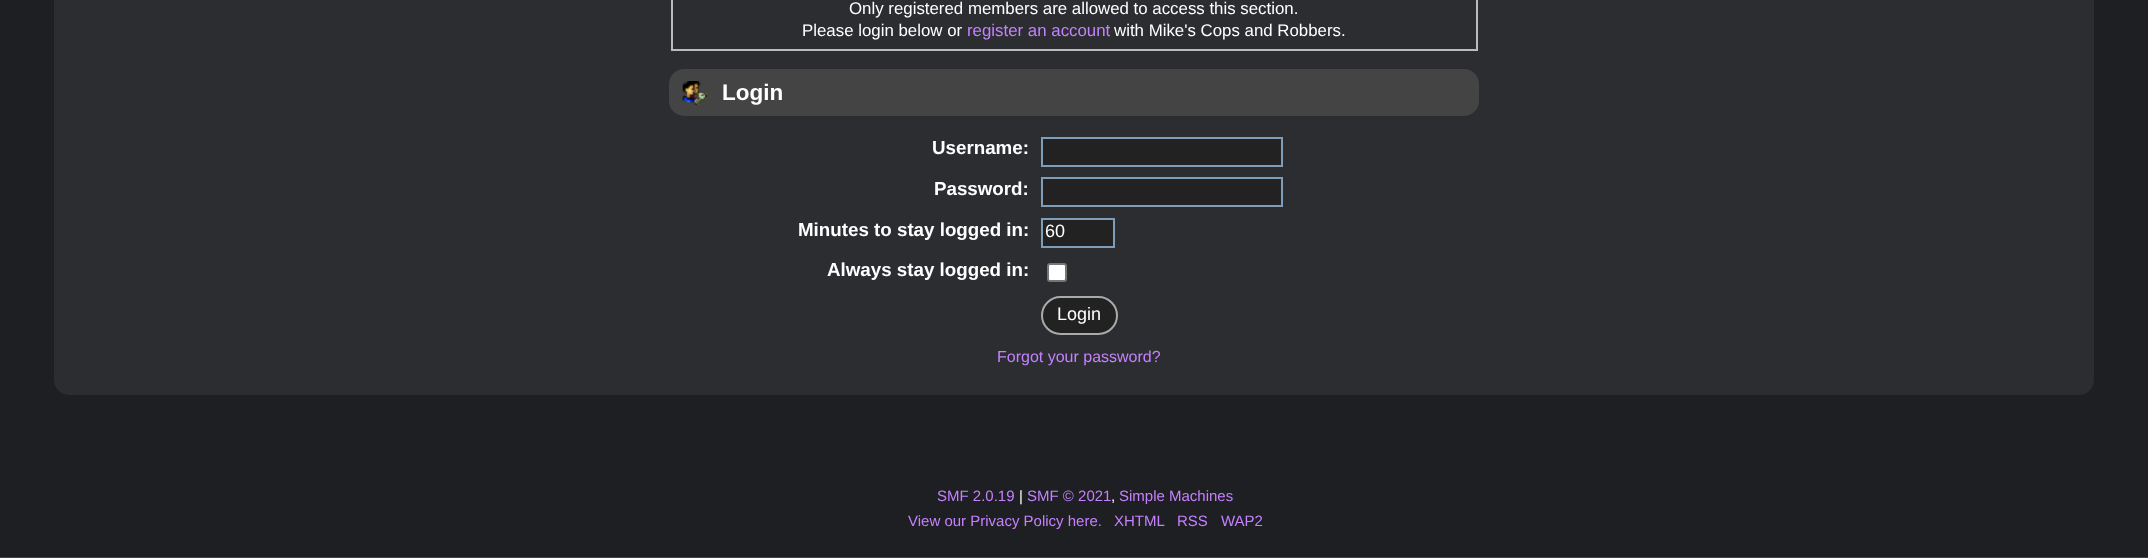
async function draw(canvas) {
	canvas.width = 2148;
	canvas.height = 558;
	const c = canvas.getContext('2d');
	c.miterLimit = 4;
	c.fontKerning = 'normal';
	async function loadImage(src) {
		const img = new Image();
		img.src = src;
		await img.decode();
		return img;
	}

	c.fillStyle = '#1e1f22';
	c.fillRect(0, 0, 2148, 558);
	c.fillStyle = '#444';
	c.fillRect(0, 557, 2148, 1);
	c.fillStyle = '#2b2d31';
	c.beginPath();
	c.roundRect(54, -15, 2040, 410, 15);
	c.fill();
	c.strokeStyle = '#bbb';
	c.lineWidth = 2;
	c.strokeRect(672, -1, 805, 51);
	c.font = '16.85px Liberation Sans';
	c.fillStyle = '#fff';
	c.fillText('Only registered members are allowed to access this section.', 849, 14);
	c.fillText('Please login below or', 802, 36);
	c.fillStyle = '#c681ff';
	c.fillText('register an account', 967, 36);
	c.fillStyle = '#fff';
	c.fillText('with Mike\'s Cops and Robbers.', 1114, 36);
	c.fillStyle = '#444';
	c.beginPath();
	c.roundRect(669, 69, 810, 47, 15);
	c.fill();
	c.drawImage(await loadImage('img1.png'), 682, 81, 25, 24);
	c.font = 'bold 22.5px Liberation Sans';
	c.fillStyle = '#fff';
	c.fillText('Login', 722, 100);
	c.font = 'bold 18.75px Liberation Sans';
	c.fillText('Username:', 932, 154);
	c.fillStyle = '#222';
	c.beginPath();
	c.rect(1042, 138, 240, 28);
	c.fill();
	c.strokeStyle = '#7f9db9';
	c.stroke();
	c.fillStyle = '#fff';
	c.fillText('Password:', 934, 195);
	c.fillStyle = '#222';
	c.beginPath();
	c.rect(1042, 178, 240, 28);
	c.fill();
	c.stroke();
	c.fillStyle = '#fff';
	c.fillText('Minutes to stay logged in:', 798, 236);
	c.fillStyle = '#222';
	c.beginPath();
	c.rect(1042, 219, 72, 28);
	c.fill();
	c.stroke();
	c.font = '18px Liberation Sans';
	c.fillStyle = '#fff';
	c.fillText('60', 1045, 237);
	c.font = 'bold 18.75px Liberation Sans';
	c.fillText('Always stay logged in:', 827, 276);
	c.beginPath();
	c.roundRect(1048, 264, 18, 17, 2);
	c.fill();
	c.strokeStyle = '#767676';
	c.stroke();
	c.fillStyle = '#222';
	c.beginPath();
	c.roundRect(1042, 297, 75, 37, 18.5);
	c.fill();
	c.strokeStyle = '#aaa';
	c.stroke();
	c.font = '18px Liberation Sans';
	c.fillStyle = '#fff';
	c.fillText('Login', 1057, 320);
	c.font = '16px Liberation Sans';
	c.fillStyle = '#c681ff';
	c.fillText('Forgot your password?', 997, 362);
	c.font = '15px Liberation Sans';
	c.fillText('SMF 2.0.19', 937, 501);
	c.fillStyle = '#fff';
	c.fillText('|', 1019, 501);
	c.fillStyle = '#c681ff';
	c.fillText('SMF © 2021', 1027, 501);
	c.fillStyle = '#fff';
	c.fillText(',', 1111, 501);
	c.fillStyle = '#c681ff';
	for (const [text, x, y] of [
		['Simple Machines', 1119, 501],
		['View our Privacy Policy here.', 908, 526],
		['XHTML', 1114, 526],
		['RSS', 1177, 526],
		['WAP2', 1221, 526],
	]) {
		c.fillText(text, x, y);
	}
}

draw(document.querySelector('canvas'));
